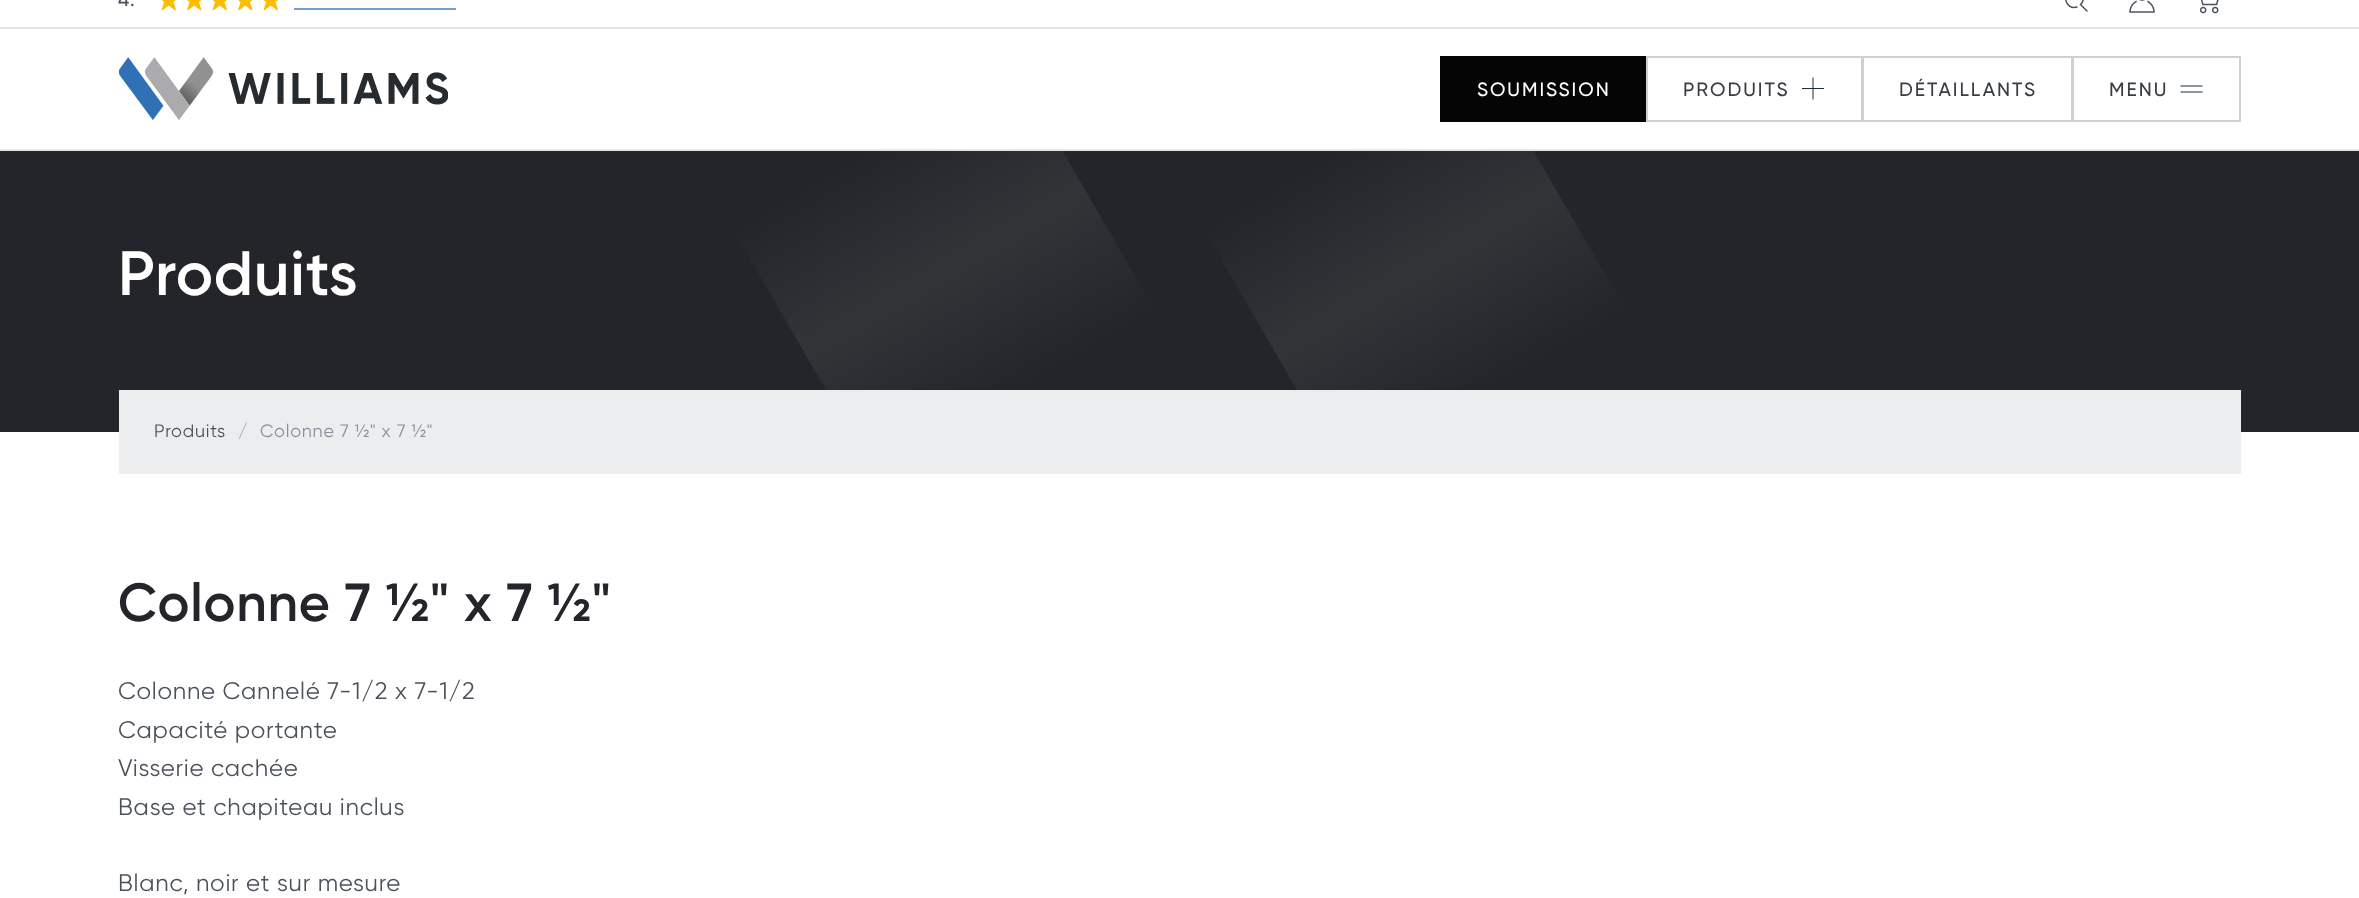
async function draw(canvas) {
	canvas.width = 2359;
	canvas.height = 898;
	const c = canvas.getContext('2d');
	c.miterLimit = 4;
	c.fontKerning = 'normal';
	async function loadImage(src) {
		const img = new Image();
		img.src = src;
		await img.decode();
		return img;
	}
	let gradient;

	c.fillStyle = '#fff';
	c.fillRect(0, 0, 2359, 898);
	c.letterSpacing = '0.75px';
	c.font = '500 19.25px Gilroy';
	c.fillStyle = '#4c525c';
	c.fillText('4.', 118, 6);
	c.drawImage(await loadImage('img1.png'), 161, 0, 117, 11);
	c.fillStyle = '#70a0d2';
	c.fillRect(294, 8, 162, 2);
	c.beginPath();
	c.moveTo(2080.5, 4.5);
	c.bezierCurveTo(2084.5, 1, 2084, -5, 2080.5, -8.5);
	c.bezierCurveTo(2078, -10, 2075.5, -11, 2073, -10.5);
	c.bezierCurveTo(2060.5, -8.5, 2065, 10.5, 2077, 7);
	c.moveTo(2080.5, 4.5);
	c.lineTo(2087, 11);
	c.strokeStyle = '#4c525c';
	c.lineWidth = 1.5;
	c.lineCap = 'round';
	c.stroke();
	c.drawImage(await loadImage('img2.png'), 2129, 0, 26, 13);
	c.drawImage(await loadImage('img3.png'), 2199, 0, 20, 14);
	c.fillStyle = '#e3e5e8';
	c.fillRect(0, 27, 2359, 2);
	c.fillStyle = '#23252a';
	c.fillRect(0, 151, 2359, 281);
	gradient = c.createLinearGradient(875, 150, 1014, 390);
	gradient.addColorStop(0, '#23252a');
	gradient.addColorStop(0.5, '#323438');
	gradient.addColorStop(1, '#23252a');
	c.fillStyle = gradient;
	c.beginPath();
	c.moveTo(687, 150);
	c.lineTo(1062, 150);
	c.lineTo(1201, 390);
	c.lineTo(826, 390);
	c.closePath();
	c.fill();
	gradient = c.createLinearGradient(1346, 150, 1485, 390);
	gradient.addColorStop(0, '#23252a');
	gradient.addColorStop(0.5, '#323438');
	gradient.addColorStop(1, '#23252a');
	c.fillStyle = gradient;
	c.beginPath();
	c.moveTo(1158, 150);
	c.lineTo(1533, 150);
	c.lineTo(1672, 390);
	c.lineTo(1297, 390);
	c.closePath();
	c.fill();
	c.fillStyle = '#e3e5e8';
	c.fillRect(0, 149, 2359, 2);
	c.drawImage(await loadImage('img4.png'), 119, 57, 329, 63);
	c.fillStyle = '#050506';
	c.fillRect(1440, 56, 206, 66);
	c.letterSpacing = '2px';
	c.fillStyle = '#fff';
	c.fillText('SOUMISSION', 1477, 96);
	c.strokeStyle = '#cdd0d5';
	c.lineWidth = 2;
	c.strokeRect(1647, 57, 215, 64);
	c.fillStyle = '#383c43';
	c.fillText('PRODUITS', 1683, 96);
	c.beginPath();
	c.moveTo(1813, 78);
	c.lineTo(1813, 99);
	c.moveTo(1802.5, 88.5);
	c.lineTo(1823.5, 88.5);
	c.strokeStyle = '#192d43';
	c.lineWidth = 1;
	c.lineCap = 'square';
	c.stroke();
	c.strokeStyle = '#cdd0d5';
	c.lineWidth = 2;
	c.strokeRect(1863, 57, 209, 64);
	c.fillText('DÉTAILLANTS', 1899, 96);
	c.strokeRect(2073, 57, 167, 64);
	c.fillText('MENU', 2109, 96);
	c.beginPath();
	c.moveTo(2181, 86);
	c.lineTo(2202, 86);
	c.moveTo(2181, 92);
	c.lineTo(2202, 92);
	c.strokeStyle = '#192d43';
	c.lineWidth = 1;
	c.stroke();
	c.letterSpacing = '0.75px';
	c.font = '600 62.5px Gilroy';
	c.fillStyle = '#fff';
	c.fillText('Produits', 118, 295);
	c.fillStyle = '#ecedef';
	c.fillRect(119, 390, 2122, 84);
	c.font = '18px Gilroy';
	c.fillStyle = '#4c525c';
	c.fillText('Produits', 154, 437);
	c.fillStyle = '#a6abb5';
	c.fillText('/', 238, 437);
	c.fillStyle = '#888e9b';
	c.fillText('Colonne 7 ½" x 7 ½"', 260, 437);
	c.font = '600 53.5px Gilroy';
	c.fillStyle = '#23252a';
	c.fillText('Colonne 7 ½" x 7 ½"', 118, 621);
	c.font = '24px Gilroy';
	c.fillStyle = '#4c525c';
	for (const [text, x, y] of [
		['Colonne Cannelé 7-1/2 x 7-1/2', 118, 699],
		['Capacité portante', 118, 738],
		['Visserie cachée', 118, 776],
		['Base et chapiteau inclus', 118, 815],
		['Blanc, noir et sur mesure', 118, 891],
	]) {
		c.fillText(text, x, y);
	}
}

draw(document.querySelector('canvas'));
